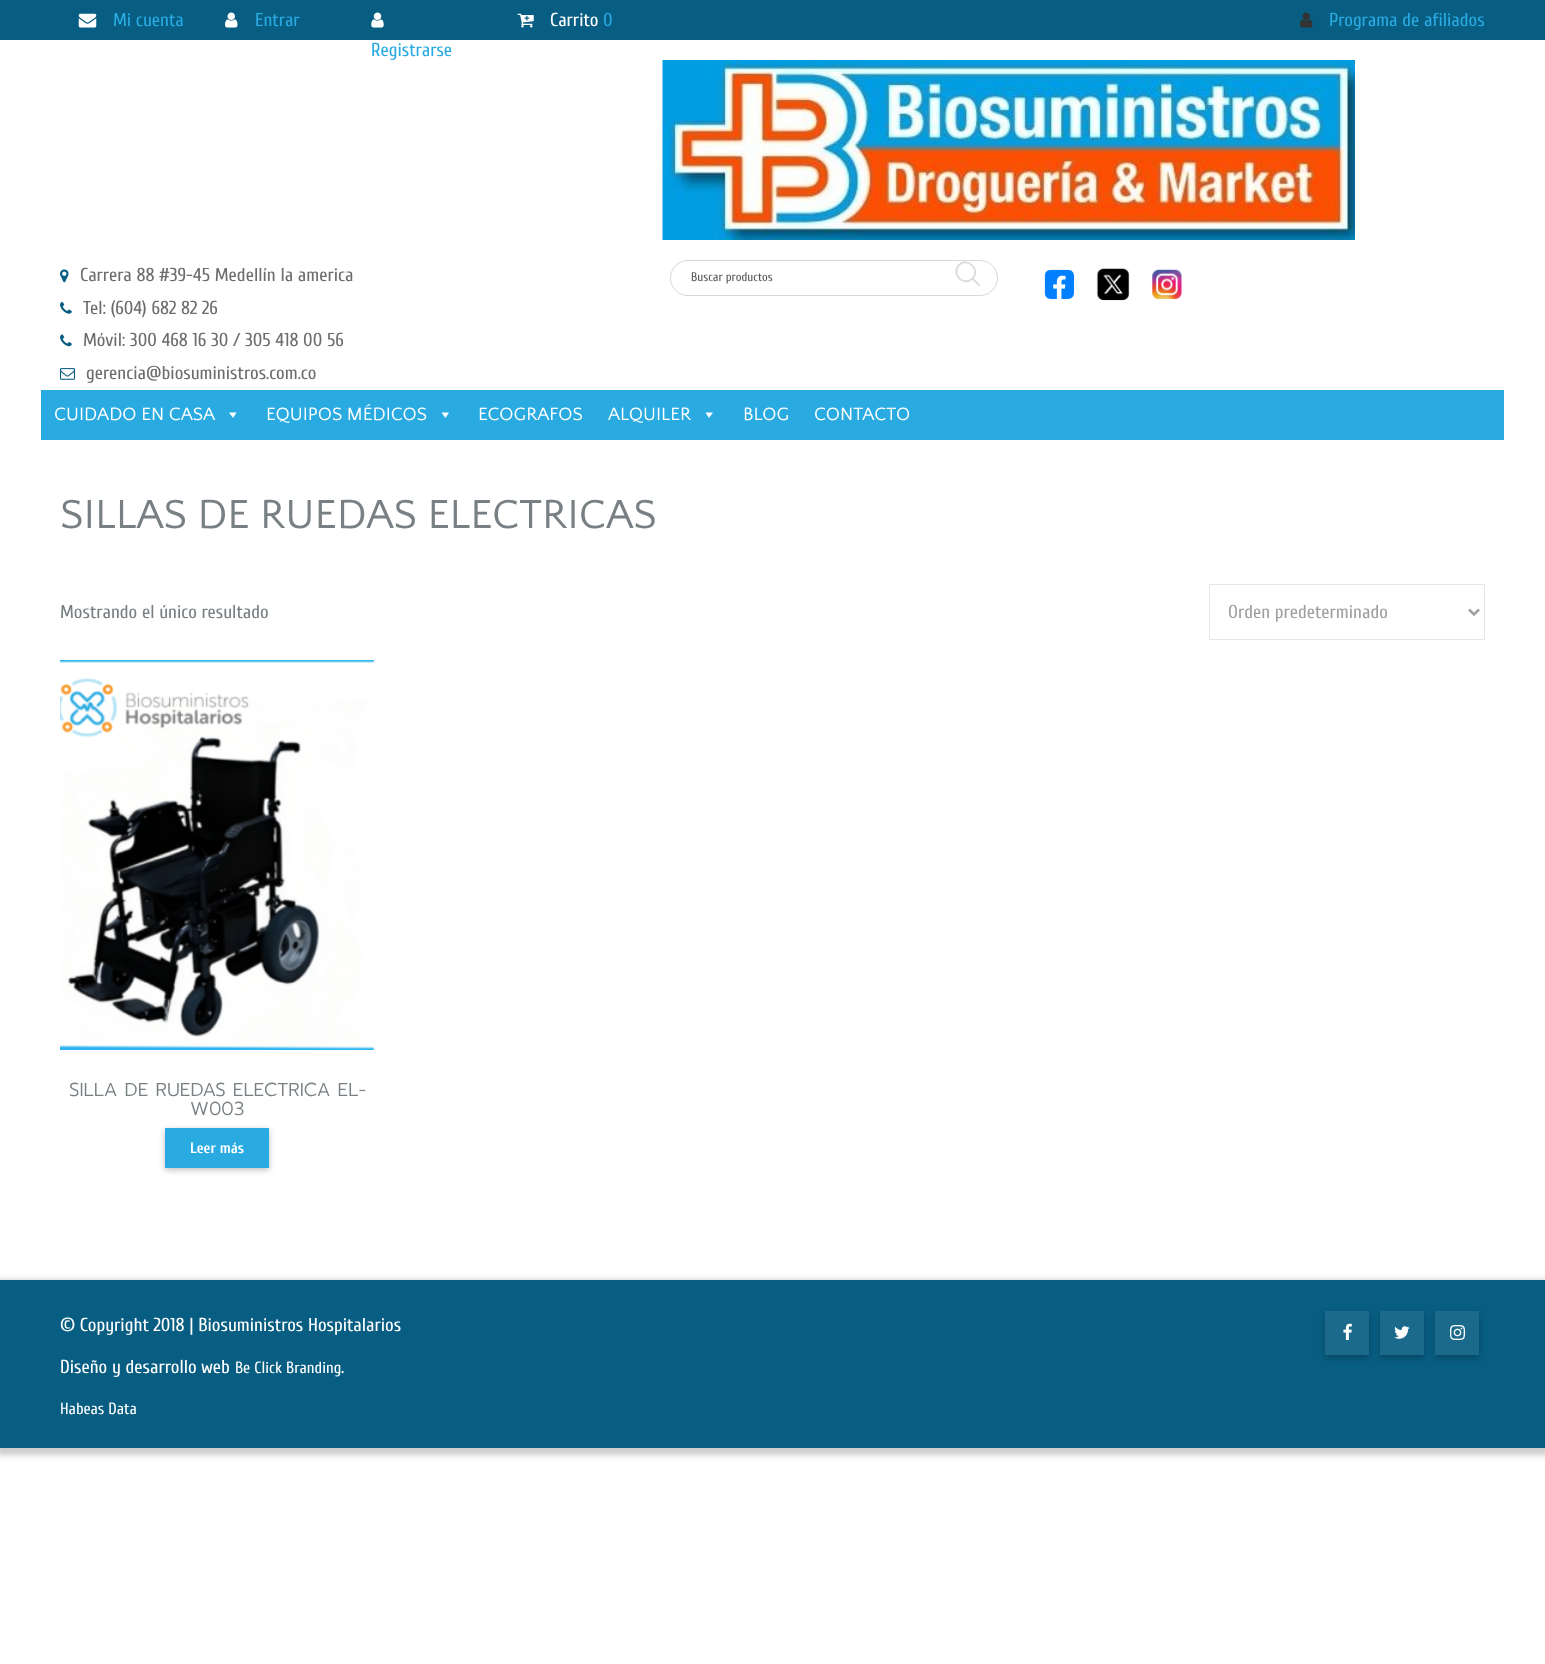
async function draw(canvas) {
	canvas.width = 1545;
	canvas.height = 1664;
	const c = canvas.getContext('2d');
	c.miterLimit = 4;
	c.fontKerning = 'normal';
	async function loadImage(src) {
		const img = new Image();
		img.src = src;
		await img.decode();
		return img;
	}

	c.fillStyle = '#fff';
	c.fillRect(0, 0, 1545, 1664);
	c.fillStyle = '#085e82';
	c.fillRect(0, 0, 1545, 40);
	c.drawImage(await loadImage('img1.png'), 78, 13, 19, 15);
	c.font = '18.75px Cuprum';
	c.fillStyle = '#29abe2';
	c.fillText('Mi cuenta', 113, 26);
	c.drawImage(await loadImage('img2.png'), 225, 12, 13, 16);
	c.fillText('Entrar', 255, 26);
	c.drawImage(await loadImage('img3.png'), 517, 13, 17, 15);
	c.fillStyle = '#fff';
	c.fillText('Carrito', 550, 26);
	c.fillStyle = '#29abe2';
	c.fillText('0', 603, 26);
	c.drawImage(await loadImage('img4.png'), 371, 12, 13, 16);
	c.fillText('Registrarse', 371, 56);
	c.drawImage(await loadImage('img5.png'), 1300, 12, 13, 16);
	c.fillText('Programa de afiliados', 1329, 26);
	c.drawImage(await loadImage('img6.png'), 662, 60, 693, 180);
	c.drawImage(await loadImage('img7.png'), 60, 269, 9, 14);
	c.fillStyle = '#6e6c6c';
	c.fillText('Carrera 88 #39-45 Medellín la america', 80, 281);
	c.drawImage(await loadImage('img8.png'), 60, 302, 12, 12);
	c.fillText('Tel: (604) 682 82 26', 83, 314);
	c.drawImage(await loadImage('img9.png'), 60, 334, 12, 13);
	c.fillText('Móvil: 300 468 16 30 / 305 418 00 56', 83, 346);
	c.drawImage(await loadImage('img10.png'), 60, 368, 15, 12);
	c.fillText('gerencia@biosuministros.com.co', 86, 379);
	c.beginPath();
	c.roundRect(670.5, 260.5, 327, 35, 17.5);
	c.strokeStyle = '#d8d8d8';
	c.stroke();
	c.font = '12.5px Cuprum';
	c.fillStyle = '#575757';
	c.fillText('Buscar productos', 691, 281);
	c.beginPath();
	c.moveTo(979, 285);
	c.lineTo(972.5, 278.5);
	c.moveTo(972.5, 278.5);
	c.bezierCurveTo(981, 270, 967.5, 256.5, 959, 265);
	c.bezierCurveTo(950.5, 274, 963.5, 287, 972.5, 278.5);
	c.closePath();
	c.strokeStyle = '#dcdcdc';
	c.lineWidth = 1.9;
	c.lineCap = 'round';
	c.lineJoin = 'round';
	c.stroke();
	c.drawImage(await loadImage('img11.png'), 1044, 269, 31, 31);
	c.drawImage(await loadImage('img12.png'), 1096, 268, 34, 33);
	c.drawImage(await loadImage('img13.png'), 1151, 269, 31, 31);
	c.fillStyle = '#29abe2';
	c.fillRect(41, 390, 1463, 50);
	c.font = '18.75px Quattrocento Sans';
	c.fillStyle = '#fff';
	c.fillText('CUIDADO EN CASA', 54, 420);
	c.beginPath();
	c.moveTo(236.5, 412.5);
	c.lineTo(233, 418);
	c.lineTo(229, 412.5);
	c.closePath();
	c.fill();
	c.fillText('EQUIPOS MÉDICOS', 266, 420);
	c.beginPath();
	c.moveTo(449, 412.5);
	c.lineTo(445.5, 418);
	c.lineTo(441.5, 412.5);
	c.closePath();
	c.fill();
	c.fillText('ECOGRAFOS', 478, 420);
	c.fillText('ALQUILER', 608, 420);
	c.beginPath();
	c.moveTo(713, 412.5);
	c.lineTo(709, 418);
	c.lineTo(705.5, 412.5);
	c.closePath();
	c.fill();
	c.fillText('BLOG', 743, 420);
	c.fillText('CONTACTO', 814, 420);
	c.font = '42.5px Quattrocento Sans';
	c.fillStyle = '#788084';
	c.fillText('SILLAS DE RUEDAS ELECTRICAS', 60, 528);
	c.font = '18.75px Cuprum';
	c.fillText('Mostrando el único resultado', 60, 618);
	c.strokeStyle = '#e6e6e6';
	c.lineWidth = 1;
	c.lineJoin = 'miter';
	c.strokeRect(1209.5, 584.5, 275, 55);
	c.beginPath();
	c.moveTo(1469, 609.5);
	c.lineTo(1474, 614.5);
	c.lineTo(1479, 609.5);
	c.strokeStyle = '#a0a0a0';
	c.lineWidth = 2.5;
	c.lineCap = 'butt';
	c.stroke();
	c.fillStyle = '#a0a0a0';
	c.fillText('Orden predeterminado', 1228, 618);
	c.drawImage(await loadImage('img14.png'), 60, 660, 314, 390);
	c.font = '300 18.75px Prompt';
	c.fillStyle = '#788084';
	c.fillText('SILLA DE RUEDAS ELECTRICA EL-', 69, 1096);
	c.fillText('W003', 190, 1115);
	c.fillStyle = '#00000042';
	c.filter = 'blur(3px)';
	c.beginPath();
	c.rect(165, 1130, 104, 40);
	c.fill();
	c.filter = 'none';
	c.fillStyle = '#29abe2';
	c.fillRect(165, 1128, 104, 40);
	c.font = 'bold 15px Cuprum';
	c.fillStyle = '#fff';
	c.fillText('Leer más', 190, 1153);
	c.fillStyle = '#00000033';
	c.filter = 'blur(3px)';
	c.beginPath();
	c.rect(-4, 1280, 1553, 175);
	c.fill();
	c.filter = 'none';
	c.fillStyle = '#085e82';
	c.fillRect(0, 1280, 1545, 168);
	c.font = '18.75px Cuprum';
	c.fillStyle = '#fff';
	c.fillText('© Copyright 2018 | Biosuministros Hospitalarios', 60, 1331);
	c.fillText('Diseño y desarrollo web', 60, 1373);
	c.font = '16.25px Cuprum';
	c.fillText('Be Click Branding', 235, 1373);
	c.font = '18.75px Cuprum';
	c.fillText('.', 341, 1373);
	c.font = '16.25px Cuprum';
	c.fillText('Habeas Data', 60, 1414);
	c.save();
	c.beginPath();
	c.moveTo(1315, 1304);
	c.lineTo(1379, 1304);
	c.lineTo(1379, 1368);
	c.lineTo(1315, 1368);
	c.closePath();
	c.moveTo(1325, 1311);
	c.lineTo(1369, 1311);
	c.lineTo(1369, 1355);
	c.lineTo(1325, 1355);
	c.closePath();
	c.clip('evenodd');
	c.fillStyle = '#00000042';
	c.filter = 'blur(3px)';
	c.beginPath();
	c.rect(1325, 1314, 44, 44);
	c.fill();
	c.filter = 'none';
	c.restore();
	c.fillStyle = '#ffffff14';
	c.fillRect(1325, 1311, 44, 44);
	c.drawImage(await loadImage('img15.png'), 1343, 1323, 9, 17);
	c.save();
	c.beginPath();
	c.moveTo(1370, 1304);
	c.lineTo(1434, 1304);
	c.lineTo(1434, 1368);
	c.lineTo(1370, 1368);
	c.closePath();
	c.moveTo(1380, 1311);
	c.lineTo(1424, 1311);
	c.lineTo(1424, 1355);
	c.lineTo(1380, 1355);
	c.closePath();
	c.clip('evenodd');
	c.fillStyle = '#00000042';
	c.filter = 'blur(3px)';
	c.beginPath();
	c.rect(1380, 1314, 44, 44);
	c.fill();
	c.filter = 'none';
	c.restore();
	c.fillRect(1380, 1311, 44, 44);
	c.drawImage(await loadImage('img16.png'), 1394, 1326, 16, 13);
	c.save();
	c.beginPath();
	c.moveTo(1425, 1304);
	c.lineTo(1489, 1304);
	c.lineTo(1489, 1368);
	c.lineTo(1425, 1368);
	c.closePath();
	c.moveTo(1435, 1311);
	c.lineTo(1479, 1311);
	c.lineTo(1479, 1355);
	c.lineTo(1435, 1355);
	c.closePath();
	c.clip('evenodd');
	c.fillStyle = '#00000042';
	c.filter = 'blur(3px)';
	c.beginPath();
	c.rect(1435, 1314, 44, 44);
	c.fill();
	c.filter = 'none';
	c.restore();
	c.fillRect(1435, 1311, 44, 44);
	c.drawImage(await loadImage('img17.png'), 1450, 1325, 15, 15);
}

draw(document.querySelector('canvas'));
